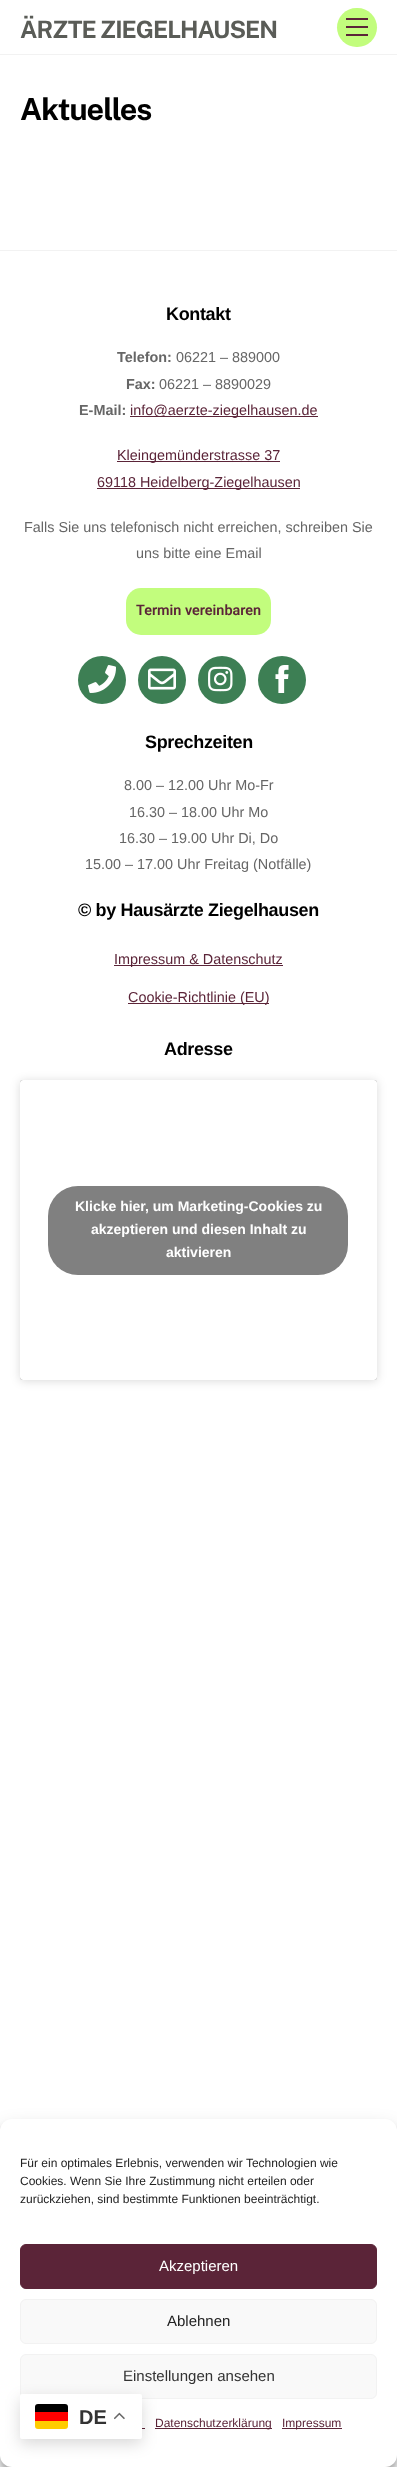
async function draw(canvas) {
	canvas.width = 397;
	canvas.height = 2467;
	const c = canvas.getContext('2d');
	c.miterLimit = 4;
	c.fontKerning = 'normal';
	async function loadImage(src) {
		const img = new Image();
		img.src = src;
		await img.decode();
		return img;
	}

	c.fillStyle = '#fff';
	c.fillRect(0, 0, 397, 2467);
	c.fillStyle = '#f2f2f2';
	c.fillRect(0, 54, 397, 1);
	c.letterSpacing = '-1px';
	c.font = 'bold 24px Public Sans';
	c.fillStyle = '#5a5c57';
	c.fillText('ÄRZTE ZIEGELHAUSEN', 20, 38);
	c.fillStyle = '#c2fd7d';
	c.beginPath();
	c.roundRect(337, 8, 40, 39, 19.5);
	c.fill();
	for (const [x, y, w, h, color] of [
		[346, 34, 22, 2, '#5b2438'],
		[346, 18, 22, 2, '#5b2438'],
		[346, 26, 22, 2, '#5b2438'],
	]) {
		c.fillStyle = color;
		c.fillRect(x, y, w, h);
	}
	c.font = 'bold 30.5px Public Sans';
	c.fillStyle = '#000';
	c.fillText('Aktuelles', 20, 120);
	c.fillStyle = '#f2f2f2';
	c.fillRect(0, 250, 397, 1);
	c.letterSpacing = '-0.35px';
	c.font = 'bold 18px Liberation Sans';
	c.fillStyle = '#000';
	c.fillText('Kontakt', 166, 320);
	c.letterSpacing = '0px';
	c.font = 'bold 14.4px Liberation Sans';
	c.fillStyle = '#666';
	c.fillText('Telefon:', 117, 362);
	c.font = '14.4px Liberation Sans';
	c.fillText('06221 – 889000', 176, 362);
	c.font = 'bold 14.4px Liberation Sans';
	c.fillText('Fax:', 126, 389);
	c.font = '14.4px Liberation Sans';
	c.fillText('06221 – 8890029', 159, 389);
	c.font = 'bold 14.4px Liberation Sans';
	c.fillText('E-Mail:', 79, 415);
	c.fillStyle = '#5b2438';
	c.fillRect(130, 416, 188, 1);
	c.font = '14.4px Liberation Sans';
	c.fillText('info@aerzte-ziegelhausen.de', 130, 415);
	c.fillRect(117, 461, 163, 1);
	c.fillText('Kleingemünderstrasse 37', 117, 460);
	c.fillRect(97, 488, 203, 1);
	c.fillText('69118 Heidelberg-Ziegelhausen', 97, 487);
	c.fillStyle = '#666';
	c.fillText('Falls Sie uns telefonisch nicht erreichen, schreiben Sie', 24, 532);
	c.fillText('uns bitte eine Email', 136, 558);
	c.fillStyle = '#c2fd7d';
	c.beginPath();
	c.roundRect(126, 588, 145, 47, 15);
	c.fill();
	c.font = '600 14.4px Roboto';
	c.fillStyle = '#5b2438';
	c.fillText('Termin vereinbaren', 136, 615);
	c.fillStyle = '#3d7f54';
	c.beginPath();
	c.arc(102, 680, 24, 0, 2 * Math.PI);
	c.fill();
	c.drawImage(await loadImage('img1.png'), 88, 665, 28, 28);
	c.beginPath();
	c.arc(162, 680, 24, 0, 2 * Math.PI);
	c.fill();
	c.drawImage(await loadImage('img2.png'), 148, 668, 28, 22);
	c.beginPath();
	c.arc(222, 680, 24, 0, 2 * Math.PI);
	c.fill();
	c.drawImage(await loadImage('img3.png'), 208, 666, 25, 26);
	c.beginPath();
	c.arc(282, 680, 24, 0, 2 * Math.PI);
	c.fill();
	c.drawImage(await loadImage('img4.png'), 275, 665, 14, 28);
	c.letterSpacing = '-0.35px';
	c.font = 'bold 18px Liberation Sans';
	c.fillStyle = '#000';
	c.fillText('Sprechzeiten', 145, 748);
	c.letterSpacing = '0px';
	c.font = '14.4px Liberation Sans';
	c.fillStyle = '#666';
	for (const [text, x, y] of [
		['8.00 – 12.00 Uhr Mo-Fr', 124, 790],
		['16.30 – 18.00 Uhr Mo', 129, 817],
		['16.30 – 19.00 Uhr Di, Do', 119, 843],
		['15.00 – 17.00 Uhr Freitag (Notfälle)', 85, 869],
	]) {
		c.fillText(text, x, y);
	}
	c.letterSpacing = '-0.35px';
	c.font = 'bold 18px Liberation Sans';
	c.fillStyle = '#000';
	c.fillText('© by Hausärzte Ziegelhausen', 78, 916);
	c.fillStyle = '#5b2438';
	c.fillRect(114, 965, 169, 1);
	c.letterSpacing = '0px';
	c.font = '14.4px Liberation Sans';
	c.fillText('Impressum & Datenschutz', 114, 964);
	c.fillRect(128, 1003, 141, 1);
	c.fillText('Cookie-Richtlinie (EU)', 128, 1002);
	c.letterSpacing = '-0.35px';
	c.font = 'bold 18px Liberation Sans';
	c.fillStyle = '#000';
	c.fillText('Adresse', 164, 1055);
	c.fillStyle = '#00000026';
	c.filter = 'blur(5px)';
	c.beginPath();
	c.roundRect(20, 1081, 357, 300, 3);
	c.fill();
	c.filter = 'none';
	c.fillStyle = '#00000080';
	c.filter = 'blur(0.5px)';
	c.beginPath();
	c.roundRect(20, 1080, 357, 300, 3);
	c.fill();
	c.filter = 'none';
	c.fillStyle = '#fff';
	c.beginPath();
	c.roundRect(20, 1080, 357, 300, 3);
	c.fill();
	c.fillStyle = '#808080';
	c.beginPath();
	c.roundRect(48, 1186, 300, 89, 30);
	c.fill();
	c.letterSpacing = '0px';
	c.font = 'bold 14px Liberation Sans';
	c.fillStyle = '#fff';
	for (const [text, x, y] of [
		['Klicke hier, um Marketing-Cookies zu', 75, 1211],
		['akzeptieren und diesen Inhalt zu', 91, 1234],
		['aktivieren', 166, 1257],
	]) {
		c.fillText(text, x, y);
	}
	c.fillStyle = '#0000003b';
	c.filter = 'blur(3px)';
	c.beginPath();
	c.roundRect(0, 2125, 397, 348, 12);
	c.fill();
	c.filter = 'none';
	c.fillStyle = '#00000030';
	c.filter = 'blur(10px)';
	c.beginPath();
	c.roundRect(0, 2129, 397, 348, 12);
	c.fill();
	c.filter = 'none';
	c.fillStyle = '#fff';
	c.beginPath();
	c.roundRect(0, 2119, 397, 348, 12);
	c.fill();
	c.font = '12px Liberation Sans';
	c.fillStyle = '#222';
	for (const [text, x, y] of [
		['Für ein optimales Erlebnis, verwenden wir Technologien wie', 20, 2167],
		['Cookies. Wenn Sie Ihre Zustimmung nicht erteilen oder', 20, 2185],
		['zurückziehen, sind bestimmte Funktionen beeinträchtigt.', 20, 2203],
	]) {
		c.fillText(text, x, y);
	}
	c.fillStyle = '#5b2438';
	c.beginPath();
	c.roundRect(20.5, 2244.5, 356, 44, 5.5);
	c.fill();
	c.strokeStyle = '#5b2438';
	c.stroke();
	c.font = '15px Liberation Sans';
	c.fillStyle = '#fff';
	c.fillText('Akzeptieren', 159, 2271);
	c.fillStyle = '#f9f9f9';
	c.beginPath();
	c.roundRect(20.5, 2299.5, 356, 44, 5.5);
	c.fill();
	c.strokeStyle = '#f2f2f2';
	c.stroke();
	c.fillStyle = '#222';
	c.fillText('Ablehnen', 167, 2326);
	c.fillStyle = '#f9f9f9';
	c.beginPath();
	c.roundRect(20.5, 2354.5, 356, 44, 5.5);
	c.fill();
	c.stroke();
	c.fillStyle = '#333';
	c.fillText('Einstellungen ansehen', 123, 2381);
	c.fillStyle = '#5b2438';
	c.fillRect(142, 2428, 3, 1);
	c.fillRect(155, 2428, 117, 1);
	c.font = '12px Liberation Sans';
	c.fillText('Datenschutzerklärung', 155, 2427);
	c.fillRect(282, 2428, 60, 1);
	c.fillText('Impressum', 282, 2427);
	c.fillStyle = '#00000026';
	c.filter = 'blur(7.5px)';
	c.beginPath();
	c.roundRect(20, 2399, 122, 45, 2);
	c.fill();
	c.filter = 'none';
	c.fillStyle = '#fff';
	c.beginPath();
	c.roundRect(20, 2394, 122, 45, 2);
	c.fill();
	c.fillStyle = '#fc0';
	c.beginPath();
	c.roundRect(35, 2421, 33, 8, [0, 0, 3, 3]);
	c.fill();
	c.fillStyle = '#000';
	c.beginPath();
	c.roundRect(35, 2404, 33, 8, [3, 3, 0, 0]);
	c.fill();
	c.fillStyle = '#f00';
	c.fillRect(35, 2412, 33, 9);
	c.font = 'bold 20px Liberation Sans';
	c.fillStyle = '#333';
	c.fillText('DE', 79, 2424);
	c.drawImage(await loadImage('img5.png'), 114, 2412, 11, 8);
}

draw(document.querySelector('canvas'));
